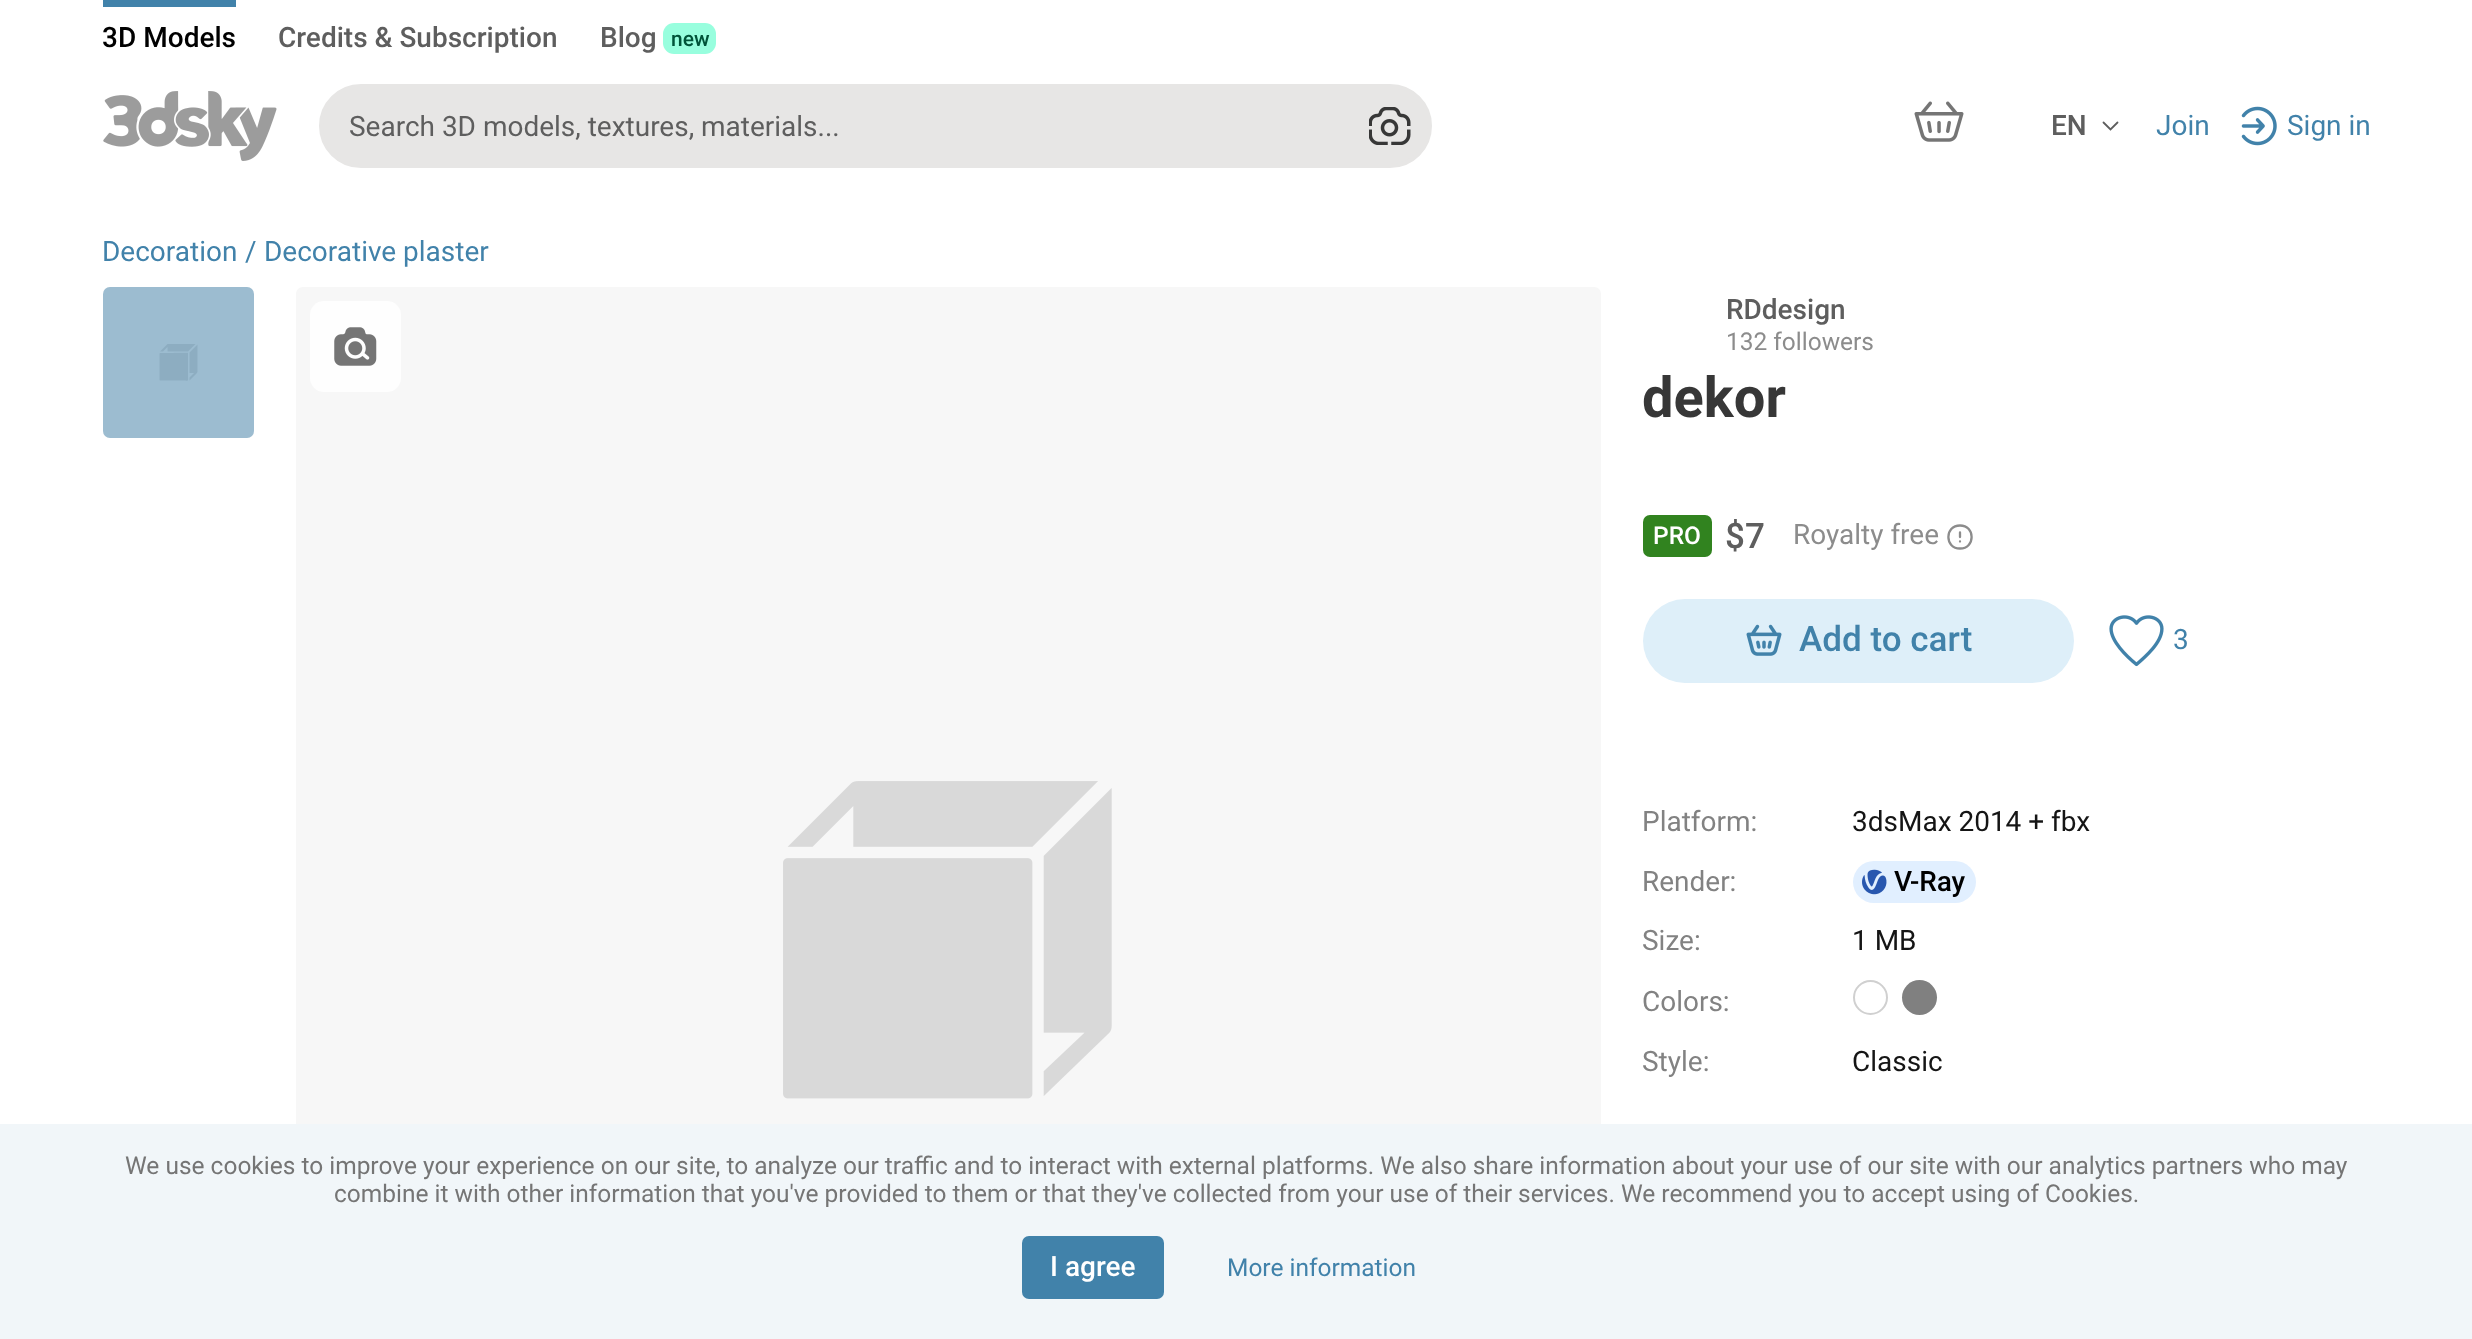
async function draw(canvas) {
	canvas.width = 2472;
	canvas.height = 1339;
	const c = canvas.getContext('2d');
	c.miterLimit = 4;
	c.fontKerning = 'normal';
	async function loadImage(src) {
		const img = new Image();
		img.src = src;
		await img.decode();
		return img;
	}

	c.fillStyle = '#fff';
	c.fillRect(0, 0, 2472, 1339);
	c.fillStyle = '#4182aa';
	c.fillRect(103, 0, 133, 7);
	c.font = '500 28px Roboto';
	c.fillStyle = '#000';
	c.fillText('3D Models', 102, 47);
	c.fillStyle = '#5e5e5e';
	c.fillText('Credits & Subscription', 278, 47);
	c.fillText('Blog', 600, 47);
	c.fillStyle = '#98fede';
	c.beginPath();
	c.roundRect(663, 23, 53, 31, 11);
	c.fill();
	c.font = '500 21px Roboto';
	c.fillStyle = '#005339';
	c.fillText('new', 671, 46);
	c.drawImage(await loadImage('img1.png'), 103, 91, 174, 70);
	c.fillStyle = '#e7e6e5';
	c.beginPath();
	c.roundRect(321, 86, 1109, 80, 40);
	c.fill();
	c.strokeStyle = '#e7e6e5';
	c.lineWidth = 4;
	c.stroke();
	c.font = '28px Roboto';
	c.fillStyle = '#5e5e5e';
	c.fillText('Search 3D models, textures, materials...', 349, 136);
	c.drawImage(await loadImage('img2.png'), 1369, 107, 42, 38);
	c.drawImage(await loadImage('img3.png'), 1914, 101, 50, 41);
	c.font = '500 28px Roboto';
	c.fillText('EN', 2051, 135);
	c.beginPath();
	c.moveTo(2103.5, 122.5);
	c.lineTo(2110.5, 129.5);
	c.lineTo(2117.5, 122.5);
	c.strokeStyle = '#5e5e5e';
	c.lineWidth = 1.8;
	c.lineCap = 'round';
	c.stroke();
	c.font = '28px Roboto';
	c.fillStyle = '#4182aa';
	c.fillText('Join', 2156, 135);
	c.drawImage(await loadImage('img4.png'), 2241, 106, 36, 40);
	for (const [text, x, y] of [
		['Sign in', 2287, 135],
		['Decoration', 102, 261],
		['/', 245, 261],
		['Decorative plaster', 264, 261],
	]) {
		c.fillText(text, x, y);
	}
	c.fillStyle = '#f7f7f7';
	c.beginPath();
	c.roundRect(103, 287, 151, 151, 7);
	c.fill();
	c.fillStyle = '#d9d9d9';
	c.beginPath();
	c.moveTo(188, 351.5);
	c.lineTo(167.5, 351.5);
	c.lineTo(167.5, 347);
	c.lineTo(163, 351.5);
	c.lineTo(160, 351.5);
	c.lineTo(167.5, 344);
	c.lineTo(168, 344);
	c.lineTo(195.5, 344);
	c.closePath();
	c.fill();
	c.beginPath();
	c.moveTo(189.5, 373);
	c.lineTo(189.5, 352.5);
	c.lineTo(197.5, 344.5);
	c.lineTo(197.5, 372);
	c.lineTo(197, 373);
	c.lineTo(189.5, 380.5);
	c.lineTo(189.5, 377.5);
	c.lineTo(194, 373);
	c.closePath();
	c.moveTo(159.5, 353.5);
	c.lineTo(160, 353);
	c.lineTo(169, 353);
	c.bezierCurveTo(171, 353, 187.5, 352.5, 188, 353);
	c.lineTo(188, 375.5);
	c.bezierCurveTo(188, 382, 189.5, 380.5, 183, 380.5);
	c.lineTo(160, 380.5);
	c.lineTo(159.5, 380);
	c.closePath();
	c.fill();
	c.fillStyle = '#4182aa80';
	c.beginPath();
	c.roundRect(103, 287, 151, 151, 7);
	c.fill();
	c.drawImage(await loadImage('img5.png'), 296, 287, 1305, 837);
	c.fillStyle = '#fefefe';
	c.beginPath();
	c.roundRect(310, 301, 91, 91, 14);
	c.fill();
	c.drawImage(await loadImage('img6.png'), 334, 327, 43, 39);
	c.font = '500 28px Roboto';
	c.fillStyle = '#5e5e5e';
	c.fillText('RDdesign', 1726, 319);
	c.font = '24.5px Roboto';
	c.fillStyle = '#8c8c8c';
	c.fillText('132 followers', 1726, 350);
	c.font = 'bold 56px Roboto';
	c.fillStyle = '#373737';
	c.fillText('dekor', 1642, 417);
	c.fillStyle = '#31831f';
	c.beginPath();
	c.roundRect(1643, 515, 69, 42, 7);
	c.fill();
	c.font = '500 24.5px Roboto';
	c.fillStyle = '#fff';
	c.fillText('PRO', 1653, 544);
	c.font = '500 35px Roboto';
	c.fillStyle = '#5e5e5e';
	c.fillText('$7', 1725, 548);
	c.font = '28px Roboto';
	c.fillStyle = '#8c8c8c';
	c.fillText('Royalty free', 1793, 544);
	c.beginPath();
	c.moveTo(1960, 548.5);
	c.bezierCurveTo(1975.5, 548.5, 1975.5, 525.5, 1960, 525.5);
	c.bezierCurveTo(1944.5, 525.5, 1944.5, 548.5, 1960, 548.5);
	c.closePath();
	c.moveTo(1960, 532.5);
	c.lineTo(1960, 537);
	c.moveTo(1960, 541.5);
	c.lineTo(1960, 541.5);
	c.strokeStyle = '#8c8c8c';
	c.lineWidth = 2.3;
	c.lineJoin = 'round';
	c.stroke();
	c.fillStyle = '#deeff9';
	c.beginPath();
	c.roundRect(1643, 599, 431, 84, 42);
	c.fill();
	c.drawImage(await loadImage('img7.png'), 1746, 624, 36, 32);
	c.font = '500 35px Roboto';
	c.fillStyle = '#4182aa';
	c.fillText('Add to cart', 1799, 651);
	c.drawImage(await loadImage('img8.png'), 2109, 615, 55, 52);
	c.font = '28px Roboto';
	c.fillText('3', 2173, 649);
	c.fillStyle = '#828282';
	c.fillText('Platform:', 1642, 831);
	c.fillStyle = '#151515';
	c.fillText('3dsMax 2014 + fbx', 1852, 831);
	c.fillStyle = '#828282';
	c.fillText('Render:', 1642, 891);
	c.fillStyle = '#e1efff';
	c.beginPath();
	c.roundRect(1853, 861, 123, 42, 21);
	c.fill();
	c.drawImage(await loadImage('img9.png'), 1862, 869, 25, 26);
	c.font = '500 28px Roboto';
	c.fillStyle = '#000';
	c.fillText('V-Ray', 1894, 891);
	c.font = '28px Roboto';
	c.fillStyle = '#828282';
	c.fillText('Size:', 1642, 950);
	c.fillStyle = '#151515';
	c.fillText('1 MB', 1852, 950);
	c.fillStyle = '#828282';
	c.fillText('Colors:', 1642, 1011);
	c.beginPath();
	c.arc(1870.5, 997.5, 16.5, 0, 2 * Math.PI);
	c.strokeStyle = '#d0d0d0';
	c.lineWidth = 2;
	c.stroke();
	c.fillStyle = '#808080';
	c.beginPath();
	c.arc(1919.5, 997.5, 17.5, 0, 2 * Math.PI);
	c.fill();
	c.fillStyle = '#828282';
	c.fillText('Style:', 1642, 1071);
	c.fillStyle = '#151515';
	c.fillText('Classic', 1852, 1071);
	c.fillStyle = '#f1f6f9';
	c.fillRect(0, 1124, 2472, 215);
	c.font = '24.5px Roboto';
	c.fillStyle = '#757575';
	c.fillText('We use cookies to improve your experience on our site, to analyze our traffic and to interact with external platforms. We also share information about your use of our site with our analytics partners who may', 125, 1174);
	c.fillText('combine it with other information that you\'ve provided to them or that they\'ve collected from your use of their services. We recommend you to accept using of Cookies.', 334, 1202);
	c.fillStyle = '#4182aa';
	c.beginPath();
	c.roundRect(1022, 1236, 142, 63, 7);
	c.fill();
	c.font = '500 28px Roboto';
	c.fillStyle = '#fff';
	c.fillText('I agree', 1050, 1276);
	c.font = '24.5px Roboto';
	c.fillStyle = '#4182aa';
	c.fillText('More information', 1227, 1276);
}

draw(document.querySelector('canvas'));
